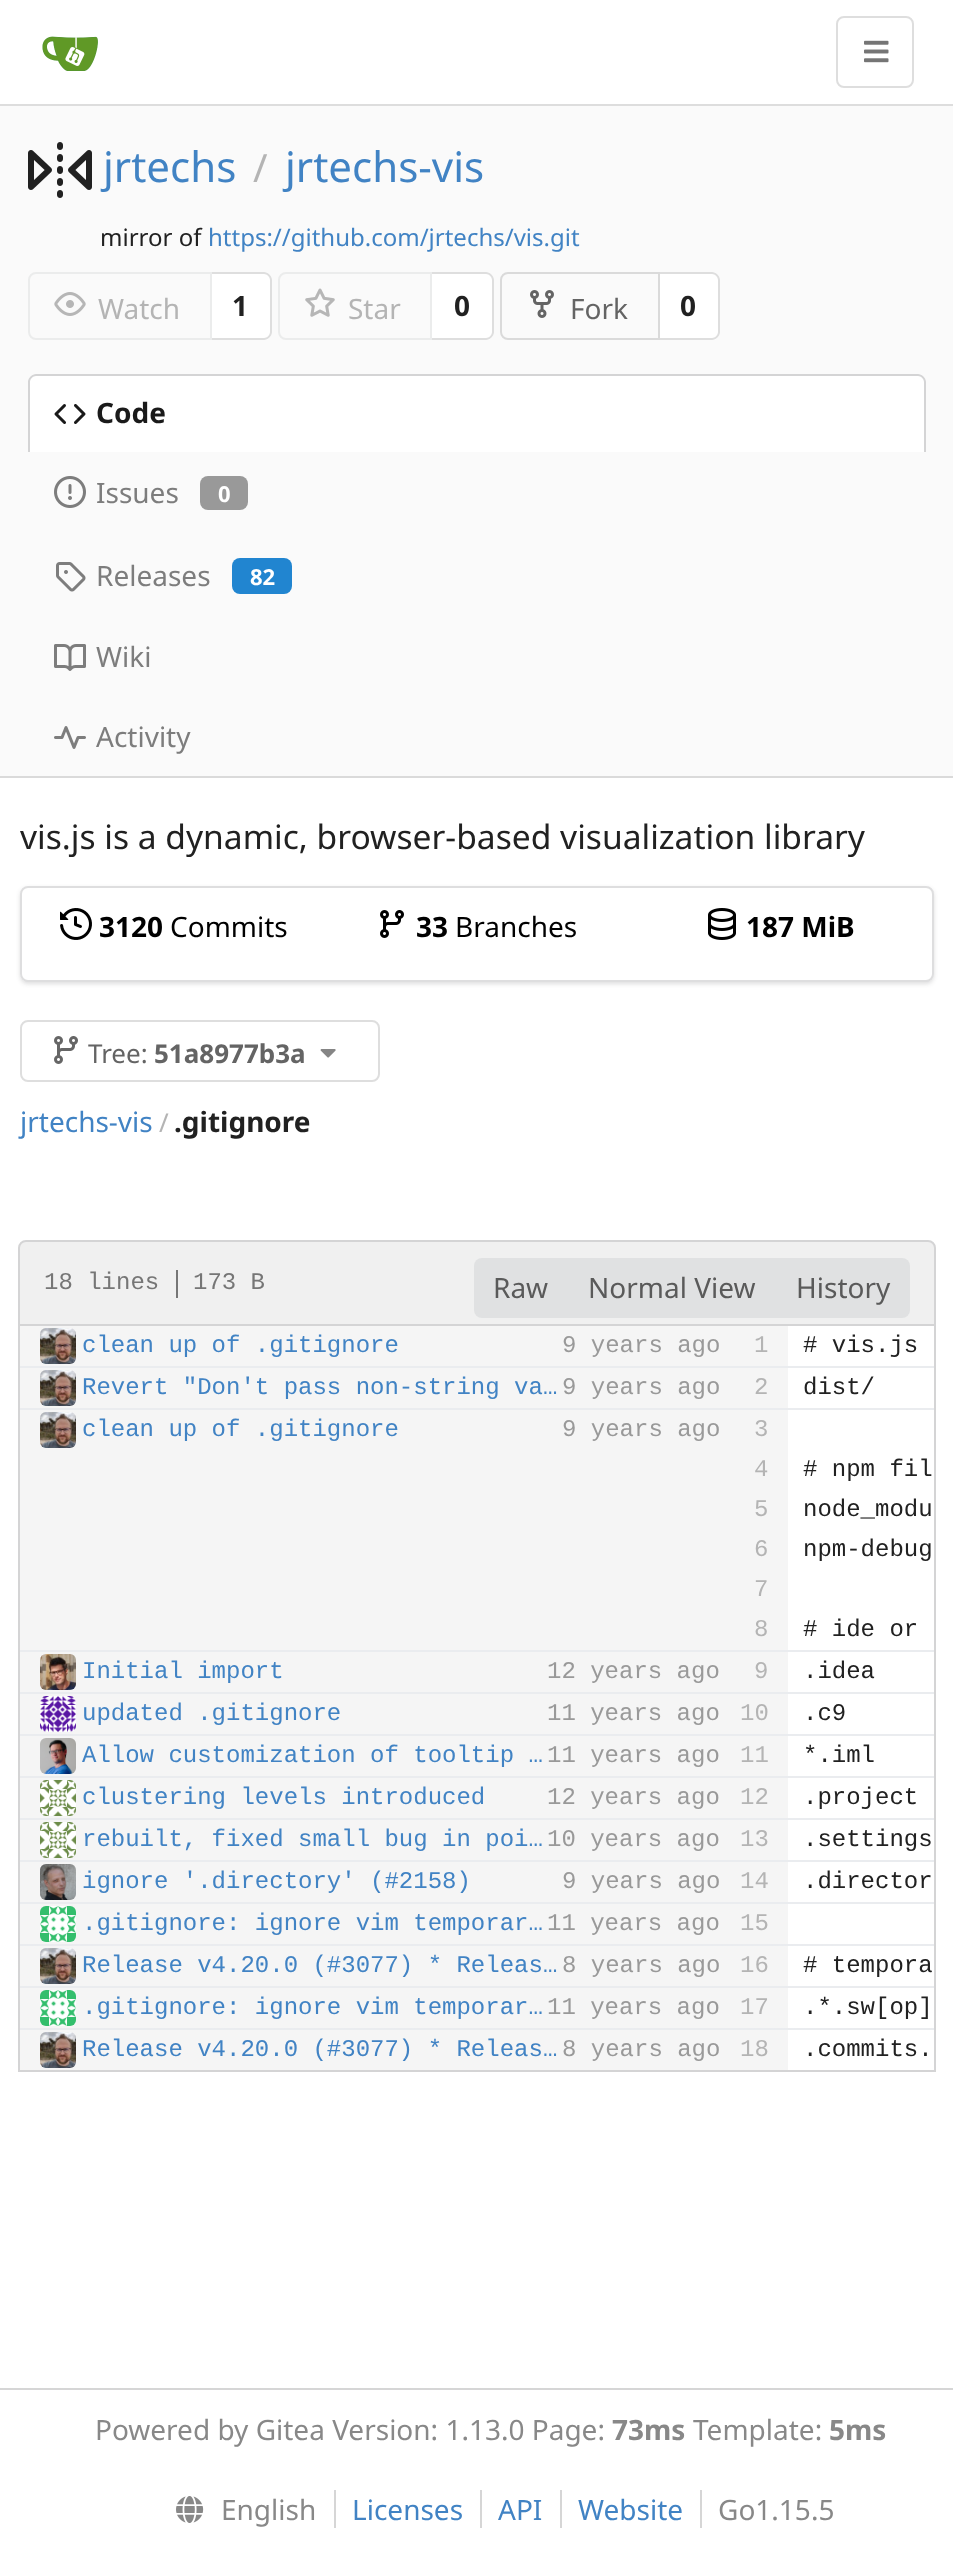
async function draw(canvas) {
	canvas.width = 953;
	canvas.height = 2550;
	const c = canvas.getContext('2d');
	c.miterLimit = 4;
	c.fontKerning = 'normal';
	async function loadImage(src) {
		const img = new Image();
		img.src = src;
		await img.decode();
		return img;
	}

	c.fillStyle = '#fff';
	c.fillRect(0, 0, 953, 2550);
	c.fillStyle = '#ddd';
	c.fillRect(0, 104, 953, 2);
	c.drawImage(await loadImage('img1.png'), 42, 36, 56, 35);
	c.beginPath();
	c.roundRect(837, 17, 76, 70, 7);
	c.strokeStyle = '#dedede';
	c.lineWidth = 2;
	c.stroke();
	c.drawImage(await loadImage('img2.png'), 864, 40, 25, 23);
	c.fillStyle = '#fafafa';
	c.fillRect(0, 106, 953, 670);
	c.drawImage(await loadImage('img3.png'), 28, 142, 64, 56);
	c.font = '42px Noto Sans';
	c.fillStyle = '#4183c4';
	c.fillText('jrtechs', 103, 182);
	c.font = '39px Noto Sans';
	c.fillStyle = '#b4b4b4';
	c.fillText('/', 253, 182);
	c.font = '42px Noto Sans';
	c.fillStyle = '#4183c4';
	c.fillText('jrtechs-vis', 285, 182);
	c.font = '24px Noto Sans';
	c.fillStyle = '#212121';
	c.fillText('mirror of', 100, 246);
	c.fillStyle = '#4183c4';
	c.fillText('https://github.com/jrtechs/vis.git', 208, 246);
	c.beginPath();
	c.roundRect(29, 273, 182, 66, [7, 0, 0, 7]);
	c.strokeStyle = '#ebecec';
	c.stroke();
	c.drawImage(await loadImage('img4.png'), 54, 292, 32, 24);
	c.font = '28px Noto Sans';
	c.fillStyle = '#b4b4b4';
	c.fillText('Watch', 98, 319);
	c.fillStyle = '#fff';
	c.beginPath();
	c.roundRect(212, 272, 60, 68, [0, 8, 8, 0]);
	c.fill();
	c.fillStyle = '#dedede';
	c.beginPath();
	c.moveTo(212, 272);
	c.lineTo(264, 272);
	c.bezierCurveTo(268, 272, 272, 276, 272, 280);
	c.lineTo(272, 332);
	c.bezierCurveTo(272, 336, 268, 340, 264, 340);
	c.lineTo(212, 340);
	c.closePath();
	c.moveTo(212, 274);
	c.lineTo(264, 274);
	c.bezierCurveTo(267, 274, 270, 277, 270, 280);
	c.lineTo(270, 332);
	c.bezierCurveTo(270, 335, 267, 338, 264, 338);
	c.lineTo(212, 338);
	c.closePath();
	c.fill('evenodd');
	c.font = 'bold 28px Noto Sans';
	c.fillStyle = '#212121';
	c.fillText('1', 232, 316);
	c.beginPath();
	c.roundRect(279, 273, 152, 66, [7, 0, 0, 7]);
	c.stroke();
	c.drawImage(await loadImage('img5.png'), 305, 288, 30, 29);
	c.font = '28px Noto Sans';
	c.fillStyle = '#b4b4b4';
	c.fillText('Star', 348, 319);
	c.fillStyle = '#fff';
	c.beginPath();
	c.roundRect(432, 272, 62, 68, [0, 8, 8, 0]);
	c.fill();
	c.fillStyle = '#dedede';
	c.beginPath();
	c.moveTo(432, 272);
	c.lineTo(486, 272);
	c.bezierCurveTo(490, 272, 494, 276, 494, 280);
	c.lineTo(494, 332);
	c.bezierCurveTo(494, 336, 490, 340, 486, 340);
	c.lineTo(432, 340);
	c.closePath();
	c.moveTo(432, 274);
	c.lineTo(486, 274);
	c.bezierCurveTo(489, 274, 492, 277, 492, 280);
	c.lineTo(492, 332);
	c.bezierCurveTo(492, 335, 489, 338, 486, 338);
	c.lineTo(432, 338);
	c.closePath();
	c.fill('evenodd');
	c.font = 'bold 28px Noto Sans';
	c.fillStyle = '#212121';
	c.fillText('0', 454, 316);
	c.beginPath();
	c.roundRect(501, 273, 158, 66, [7, 0, 0, 7]);
	c.strokeStyle = '#dadada';
	c.stroke();
	c.drawImage(await loadImage('img6.png'), 530, 290, 24, 28);
	c.font = '28px Noto Sans';
	c.fillStyle = '#646464';
	c.fillText('Fork', 570, 319);
	c.fillStyle = '#fff';
	c.beginPath();
	c.roundRect(660, 272, 60, 68, [0, 8, 8, 0]);
	c.fill();
	c.fillStyle = '#dedede';
	c.beginPath();
	c.moveTo(660, 272);
	c.lineTo(712, 272);
	c.bezierCurveTo(716, 272, 720, 276, 720, 280);
	c.lineTo(720, 332);
	c.bezierCurveTo(720, 336, 716, 340, 712, 340);
	c.lineTo(660, 340);
	c.closePath();
	c.moveTo(660, 274);
	c.lineTo(712, 274);
	c.bezierCurveTo(715, 274, 718, 277, 718, 280);
	c.lineTo(718, 332);
	c.bezierCurveTo(718, 335, 715, 338, 712, 338);
	c.lineTo(660, 338);
	c.closePath();
	c.fill('evenodd');
	c.font = 'bold 28px Noto Sans';
	c.fillStyle = '#212121';
	c.fillText('0', 680, 316);
	c.fillStyle = '#fff';
	c.beginPath();
	c.roundRect(28, 374, 898, 78, [8, 8, 0, 0]);
	c.fill();
	c.fillStyle = '#d4d4d5';
	c.beginPath();
	c.moveTo(36, 374);
	c.lineTo(918, 374);
	c.bezierCurveTo(922, 374, 926, 378, 926, 382);
	c.lineTo(926, 452);
	c.lineTo(28, 452);
	c.lineTo(28, 382);
	c.bezierCurveTo(28, 378, 32, 374, 36, 374);
	c.closePath();
	c.moveTo(36, 376);
	c.lineTo(918, 376);
	c.bezierCurveTo(921, 376, 924, 379, 924, 382);
	c.lineTo(924, 452);
	c.lineTo(30, 452);
	c.lineTo(30, 382);
	c.bezierCurveTo(30, 379, 33, 376, 36, 376);
	c.closePath();
	c.fill('evenodd');
	c.drawImage(await loadImage('img7.png'), 54, 404, 32, 20);
	c.fillStyle = '#1a1a1a';
	c.fillText('Code', 96, 423);
	c.drawImage(await loadImage('img8.png'), 54, 476, 32, 32);
	c.font = '28px Noto Sans';
	c.fillStyle = '#7d7d7d';
	c.fillText('Issues', 96, 503);
	c.fillStyle = '#999';
	c.beginPath();
	c.roundRect(200, 476, 48, 34, 8);
	c.fill();
	c.font = 'bold 22px Noto Sans';
	c.fillStyle = '#fff';
	c.fillText('0', 218, 502);
	c.drawImage(await loadImage('img9.png'), 56, 562, 30, 30);
	c.font = '28px Noto Sans';
	c.fillStyle = '#7d7d7d';
	c.fillText('Releases', 96, 586);
	c.fillStyle = '#2185d0';
	c.beginPath();
	c.roundRect(232, 558, 60, 36, 8);
	c.fill();
	c.font = 'bold 22px Noto Sans';
	c.fillStyle = '#fff';
	c.fillText('82', 250, 585);
	c.drawImage(await loadImage('img10.png'), 54, 644, 32, 27);
	c.font = '28px Noto Sans';
	c.fillStyle = '#7d7d7d';
	c.fillText('Wiki', 96, 667);
	c.drawImage(await loadImage('img11.png'), 54, 726, 32, 23);
	c.fillText('Activity', 96, 747);
	c.fillStyle = '#dadada';
	c.fillRect(0, 776, 953, 2);
	c.font = '33.6px Noto Sans';
	c.fillStyle = '#212121';
	c.fillText('vis.js is a dynamic, browser-based visualization library', 20, 849);
	c.save();
	c.beginPath();
	c.moveTo(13, 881);
	c.lineTo(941, 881);
	c.lineTo(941, 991);
	c.lineTo(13, 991);
	c.closePath();
	c.moveTo(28, 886);
	c.lineTo(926, 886);
	c.bezierCurveTo(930.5, 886, 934, 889.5, 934, 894);
	c.lineTo(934, 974);
	c.bezierCurveTo(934, 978.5, 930.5, 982, 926, 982);
	c.lineTo(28, 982);
	c.bezierCurveTo(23.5, 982, 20, 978.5, 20, 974);
	c.lineTo(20, 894);
	c.bezierCurveTo(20, 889.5, 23.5, 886, 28, 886);
	c.closePath();
	c.clip('evenodd');
	c.fillStyle = '#22242626';
	c.filter = 'blur(2px)';
	c.beginPath();
	c.roundRect(20, 888, 914, 96, 8);
	c.fill();
	c.filter = 'none';
	c.restore();
	c.beginPath();
	c.roundRect(21, 887, 912, 94, 7);
	c.strokeStyle = '#22242626';
	c.stroke();
	c.drawImage(await loadImage('img12.png'), 60, 908, 32, 32);
	c.font = 'bold 28px Noto Sans';
	c.fillStyle = '#000';
	c.fillText('3120', 99, 937);
	c.font = '28px Noto Sans';
	c.fillText('Commits', 170, 937);
	c.drawImage(await loadImage('img13.png'), 380, 910, 24, 28);
	c.font = 'bold 28px Noto Sans';
	c.fillText('33', 416, 937);
	c.font = '28px Noto Sans';
	c.fillText('Branches', 455, 937);
	c.drawImage(await loadImage('img14.png'), 708, 908, 28, 32);
	c.font = 'bold 28px Noto Sans';
	c.fillText('187 MiB', 746, 937);
	c.beginPath();
	c.roundRect(21, 1021, 358, 60, 7);
	c.strokeStyle = '#dedede';
	c.stroke();
	c.drawImage(await loadImage('img15.png'), 54, 1036, 24, 28);
	c.font = '26px Noto Sans';
	c.fillStyle = '#646464';
	c.fillText('Tree:', 88, 1063);
	c.font = 'bold 26px Noto Sans';
	c.fillText('51a8977b3a', 154, 1063);
	c.drawImage(await loadImage('img16.png'), 320, 1049, 16, 9);
	c.font = '28px Noto Sans';
	c.fillStyle = '#4183c4';
	c.fillText('jrtechs-vis', 20, 1132);
	c.font = '26px Noto Sans';
	c.fillStyle = '#b4b4b4';
	c.fillText('/', 159, 1132);
	c.font = 'bold 28px Noto Sans';
	c.fillStyle = '#212121';
	c.fillText('.gitignore', 174, 1132);
	c.fillStyle = '#f0f0f0';
	c.beginPath();
	c.roundRect(19, 1241, 916, 84, [7, 7, 0, 0]);
	c.fill();
	c.strokeStyle = '#d4d4d5';
	c.stroke();
	c.font = '24px Liberation Mono';
	c.fillStyle = '#767676';
	c.fillText('18 lines', 44, 1289);
	c.fillRect(176, 1270, 2, 28);
	c.fillText('173 B', 193, 1289);
	c.fillStyle = '#e0e1e2';
	c.beginPath();
	c.roundRect(474, 1258, 94, 60, [8, 0, 0, 8]);
	c.fill();
	c.font = '28px Noto Sans';
	c.fillStyle = '#5a5a5a';
	c.fillText('Raw', 493, 1298);
	c.fillStyle = '#e0e1e2';
	c.fillRect(568, 1258, 208, 60);
	c.fillStyle = '#5a5a5a';
	c.fillText('Normal View', 588, 1298);
	c.fillStyle = '#e0e1e2';
	c.beginPath();
	c.roundRect(776, 1258, 134, 60, [0, 8, 8, 0]);
	c.fill();
	c.fillStyle = '#5a5a5a';
	c.fillText('History', 796, 1298);
	for (const [x, y, w, h, color] of [
		[934, 1326, 2, 746, '#d4d4d5'],
		[18, 2070, 918, 2, '#d4d4d5'],
		[18, 1326, 2, 746, '#d4d4d5'],
		[20, 1326, 768, 744, '#f5f5f5'],
		[20, 1366, 914, 2, '#eaecef'],
	]) {
		c.fillStyle = color;
		c.fillRect(x, y, w, h);
	}
	c.drawImage(await loadImage('img17.png'), 40, 1328, 36, 36);
	c.font = '24px Liberation Mono';
	c.fillStyle = '#4183c4';
	c.fillText('clean up of .gitignore', 82, 1352);
	c.fillStyle = '#999';
	c.fillText('9 years ago', 562, 1352);
	c.fillStyle = '#eaecef';
	c.fillRect(20, 1408, 914, 2);
	c.drawImage(await loadImage('img17.png'), 40, 1370, 36, 36);
	c.fillStyle = '#4183c4';
	c.fillText('Revert "Don\'t pass non-string va…', 82, 1394);
	c.fillStyle = '#999';
	c.fillText('9 years ago', 562, 1394);
	c.drawImage(await loadImage('img17.png'), 40, 1412, 36, 36);
	c.fillStyle = '#4183c4';
	c.fillText('clean up of .gitignore', 82, 1436);
	c.fillStyle = '#999';
	c.fillText('9 years ago', 562, 1436);
	c.fillStyle = '#eaecef';
	c.fillRect(20, 1650, 914, 2);
	c.fillRect(20, 1692, 914, 2);
	c.drawImage(await loadImage('img18.png'), 40, 1654, 36, 36);
	c.fillStyle = '#4183c4';
	c.fillText('Initial import', 82, 1678);
	c.fillStyle = '#999';
	c.fillText('12 years ago', 547, 1678);
	c.fillStyle = '#eaecef';
	c.fillRect(20, 1734, 914, 2);
	c.drawImage(await loadImage('img19.png'), 40, 1696, 36, 36);
	c.fillStyle = '#4183c4';
	c.fillText('updated .gitignore', 82, 1720);
	c.fillStyle = '#999';
	c.fillText('11 years ago', 547, 1720);
	c.fillStyle = '#eaecef';
	c.fillRect(20, 1776, 914, 2);
	c.drawImage(await loadImage('img20.png'), 40, 1738, 36, 36);
	c.fillStyle = '#4183c4';
	c.fillText('Allow customization of tooltip …', 82, 1762);
	c.fillStyle = '#999';
	c.fillText('11 years ago', 547, 1762);
	c.fillStyle = '#eaecef';
	c.fillRect(20, 1818, 914, 2);
	c.drawImage(await loadImage('img21.png'), 40, 1780, 36, 36);
	c.fillStyle = '#4183c4';
	c.fillText('clustering levels introduced', 82, 1804);
	c.fillStyle = '#999';
	c.fillText('12 years ago', 547, 1804);
	c.fillStyle = '#eaecef';
	c.fillRect(20, 1860, 914, 2);
	c.drawImage(await loadImage('img21.png'), 40, 1822, 36, 36);
	c.fillStyle = '#4183c4';
	c.fillText('rebuilt, fixed small bug in poi…', 82, 1846);
	c.fillStyle = '#999';
	c.fillText('10 years ago', 547, 1846);
	c.fillStyle = '#eaecef';
	c.fillRect(20, 1902, 914, 2);
	c.drawImage(await loadImage('img22.png'), 40, 1864, 36, 36);
	c.fillStyle = '#4183c4';
	c.fillText('ignore \'.directory\' (#2158)', 82, 1888);
	c.fillStyle = '#999';
	c.fillText('9 years ago', 562, 1888);
	c.fillStyle = '#eaecef';
	c.fillRect(20, 1944, 914, 2);
	c.drawImage(await loadImage('img23.png'), 40, 1906, 36, 36);
	c.fillStyle = '#4183c4';
	c.fillText('.gitignore: ignore vim temporar…', 82, 1930);
	c.fillStyle = '#999';
	c.fillText('11 years ago', 547, 1930);
	c.fillStyle = '#eaecef';
	c.fillRect(20, 1986, 914, 2);
	c.drawImage(await loadImage('img17.png'), 40, 1948, 36, 36);
	c.fillStyle = '#4183c4';
	c.fillText('Release v4.20.0 (#3077) * Releas…', 82, 1972);
	c.fillStyle = '#999';
	c.fillText('8 years ago', 562, 1972);
	c.fillStyle = '#eaecef';
	c.fillRect(20, 2028, 914, 2);
	c.drawImage(await loadImage('img23.png'), 40, 1990, 36, 36);
	c.fillStyle = '#4183c4';
	c.fillText('.gitignore: ignore vim temporar…', 82, 2014);
	c.fillStyle = '#999';
	c.fillText('11 years ago', 547, 2014);
	c.drawImage(await loadImage('img17.png'), 40, 2032, 36, 36);
	c.fillStyle = '#4183c4';
	c.fillText('Release v4.20.0 (#3077) * Releas…', 82, 2056);
	c.fillStyle = '#999';
	c.fillText('8 years ago', 562, 2056);
	c.fillStyle = '#b4b4b4';
	for (const [text, x, y] of [
		['1', 754, 1352],
		['2', 754, 1394],
		['3', 754, 1436],
		['4', 754, 1476],
		['5', 754, 1516],
		['6', 754, 1556],
		['7', 754, 1596],
		['8', 754, 1636],
		['9', 754, 1678],
		['10', 740, 1720],
		['11', 740, 1762],
		['12', 740, 1804],
		['13', 740, 1846],
		['14', 740, 1888],
		['15', 740, 1930],
		['16', 740, 1972],
		['17', 740, 2014],
		['18', 740, 2056],
	]) {
		c.fillText(text, x, y);
	}
	c.fillStyle = '#212121';
	for (const [text, x, y] of [
		['# vis.js', 803, 1352],
		['dist/', 803, 1394],
		['# npm fil', 803, 1476],
		['node_modu', 803, 1516],
		['npm-debug', 803, 1556],
		['# ide or', 803, 1636],
		['.idea', 803, 1678],
		['.c9', 803, 1720],
		['*.iml', 803, 1762],
		['.project', 803, 1804],
		['.settings', 803, 1846],
		['.director', 803, 1888],
		['# tempora', 803, 1972],
		['.*.sw[op]', 803, 2014],
		['.commits.', 803, 2056],
	]) {
		c.fillText(text, x, y);
	}
	c.fillStyle = '#d6d6d6';
	c.fillRect(0, 2388, 953, 2);
	c.font = '28px Noto Sans';
	c.fillStyle = '#888';
	c.fillText('Powered by Gitea Version: 1.13.0 Page:', 95, 2440);
	c.font = 'bold 28px Noto Sans';
	c.fillText('73ms', 612, 2440);
	c.font = '28px Noto Sans';
	c.fillText('Template:', 693, 2440);
	c.font = 'bold 28px Noto Sans';
	c.fillText('5ms', 829, 2440);
	c.drawImage(await loadImage('img24.png'), 176, 2496, 28, 27);
	c.font = '28px Noto Sans';
	c.fillText('English', 221, 2520);
	c.fillStyle = '#4183c4';
	c.fillText('Licenses', 352, 2520);
	c.fillStyle = '#d6d6d6';
	c.fillRect(334, 2490, 2, 38);
	c.fillStyle = '#4183c4';
	c.fillText('API', 498, 2520);
	c.fillStyle = '#d6d6d6';
	c.fillRect(480, 2490, 2, 38);
	c.fillStyle = '#4183c4';
	c.fillText('Website', 578, 2520);
	c.fillStyle = '#d6d6d6';
	c.fillRect(560, 2490, 2, 38);
	c.fillStyle = '#888';
	c.fillText('Go1.15.5', 718, 2520);
	c.fillStyle = '#d6d6d6';
	c.fillRect(700, 2490, 2, 38);
}

draw(document.querySelector('canvas'));
